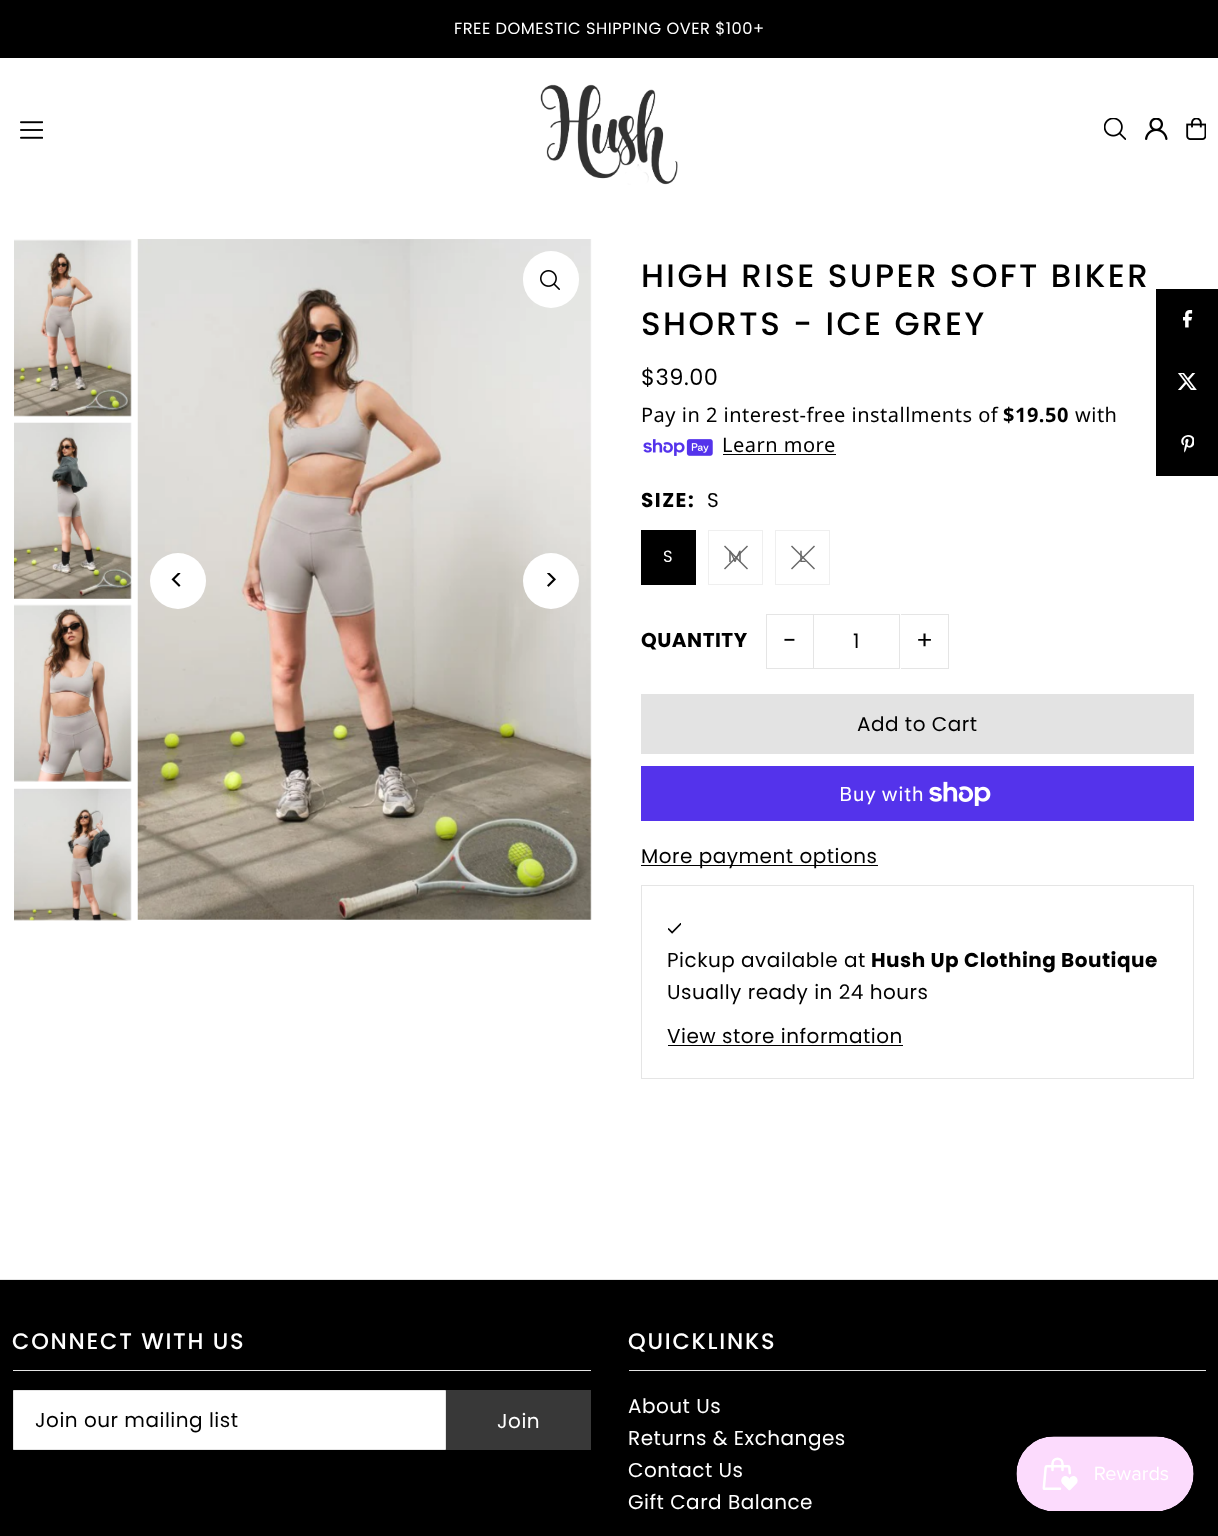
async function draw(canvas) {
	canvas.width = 1218;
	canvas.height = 1536;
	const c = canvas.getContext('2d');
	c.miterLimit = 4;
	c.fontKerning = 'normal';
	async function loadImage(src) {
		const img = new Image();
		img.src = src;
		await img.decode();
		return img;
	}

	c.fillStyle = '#fff';
	c.fillRect(0, 0, 1218, 1536);
	c.fillStyle = '#000';
	c.fillRect(0, 0, 1218, 58);
	c.letterSpacing = '0.5px';
	c.font = '16.25px Poppins';
	c.fillStyle = '#fff';
	c.fillText('FREE DOMESTIC SHIPPING OVER $100+', 454, 34);
	c.drawImage(await loadImage('img1.png'), 20, 121, 23, 18);
	c.drawImage(await loadImage('img2.png'), 540, 84, 138, 101);
	c.drawImage(await loadImage('img3.png'), 1104, 118, 22, 22);
	c.drawImage(await loadImage('img4.png'), 1145, 118, 23, 22);
	c.drawImage(await loadImage('img5.png'), 1186, 118, 20, 22);
	c.drawImage(await loadImage('img6.png'), 14, 239, 118, 178);
	c.drawImage(await loadImage('img7.png'), 14, 422, 118, 177);
	c.drawImage(await loadImage('img8.png'), 14, 604, 118, 178);
	c.drawImage(await loadImage('img9.png'), 14, 788, 118, 133);
	c.drawImage(await loadImage('img10.png'), 137, 239, 455, 681);
	c.beginPath();
	c.roundRect(523, 251, 56, 57, 28);
	c.fill();
	c.drawImage(await loadImage('img11.png'), 540, 270, 20, 20);
	c.beginPath();
	c.arc(178, 581, 28, 0, 2 * Math.PI);
	c.fill();
	c.drawImage(await loadImage('img12.png'), 171, 573, 10, 14);
	c.beginPath();
	c.arc(551, 581, 28, 0, 2 * Math.PI);
	c.fill();
	c.drawImage(await loadImage('img13.png'), 547, 573, 9, 14);
	c.letterSpacing = '2.45px';
	c.font = '500 32.5px Poppins';
	c.fillStyle = '#000';
	c.fillText('HIGH RISE SUPER SOFT BIKER', 641, 287);
	c.fillText('SHORTS - ICE GREY', 641, 335);
	c.letterSpacing = '0.5px';
	c.font = '22.5px Poppins';
	c.fillText('$39.00', 641, 385);
	c.font = '20px Noto Sans';
	c.fillText('Pay in 2 interest-free installments of', 641, 422);
	c.font = 'bold 20px Noto Sans';
	c.fillText('$19.50', 1003, 422);
	c.font = '20px Noto Sans';
	c.fillText('with', 1075, 422);
	c.drawImage(await loadImage('img14.png'), 643, 439, 70, 17);
	c.fillText('Learn more', 722, 452);
	c.fillRect(723, 454, 113, 1);
	c.letterSpacing = '1.5px';
	c.font = 'bold 20px Poppins';
	c.fillText('SIZE:', 641, 507);
	c.font = '20px Poppins';
	c.fillText('S', 707, 507);
	c.fillRect(641, 530, 55, 55);
	c.letterSpacing = '0.5px';
	c.font = '16.25px Poppins';
	c.fillStyle = '#fff';
	c.fillText('S', 663, 562);
	c.strokeStyle = '#efefef';
	c.strokeRect(708.5, 530.5, 54, 54);
	c.fillStyle = '#666';
	c.beginPath();
	c.moveTo(747, 545.5);
	c.lineTo(748, 546.5);
	c.lineTo(725, 569.5);
	c.lineTo(724, 568.5);
	c.closePath();
	c.fill();
	c.beginPath();
	c.moveTo(748, 568.5);
	c.lineTo(747, 569.5);
	c.lineTo(724, 546.5);
	c.lineTo(725, 545.5);
	c.closePath();
	c.fill();
	c.fillText('M', 728, 562);
	c.strokeRect(775.5, 530.5, 54, 54);
	c.beginPath();
	c.moveTo(814, 545.5);
	c.lineTo(815, 546.5);
	c.lineTo(792, 569.5);
	c.lineTo(791, 568.5);
	c.closePath();
	c.fill();
	c.beginPath();
	c.moveTo(815, 568.5);
	c.lineTo(814, 569.5);
	c.lineTo(791, 546.5);
	c.lineTo(792, 545.5);
	c.closePath();
	c.fill();
	c.fillText('L', 799, 562);
	c.font = 'bold 20px Poppins';
	c.fillStyle = '#000';
	c.fillText('QUANTITY', 641, 647);
	for (const [x, y, w, h, color] of [
		[766, 614, 48, 1, '#e5e5e5'],
		[766, 668, 48, 1, '#e5e5e5'],
		[766, 614, 1, 55, '#e5e5e5'],
	]) {
		c.fillStyle = color;
		c.fillRect(x, y, w, h);
	}
	c.letterSpacing = '1px';
	c.font = '25px Poppins';
	c.fillStyle = '#000';
	c.fillText('-', 783, 649);
	c.strokeStyle = '#e5e5e5';
	c.strokeRect(813.5, 614.5, 86, 54);
	c.letterSpacing = '0.5px';
	c.font = '20px Poppins';
	c.fillText('1', 853, 648);
	for (const [x, y, w, h, color] of [
		[901, 614, 48, 1, '#e5e5e5'],
		[948, 614, 1, 55, '#e5e5e5'],
		[901, 668, 48, 1, '#e5e5e5'],
	]) {
		c.fillStyle = color;
		c.fillRect(x, y, w, h);
	}
	c.letterSpacing = '1px';
	c.font = '25px Poppins';
	c.fillStyle = '#000';
	c.fillText('+', 916, 649);
	c.fillStyle = '#e3e3e3';
	c.fillRect(641, 694, 553, 60);
	c.letterSpacing = '0.5px';
	c.font = '20px Poppins';
	c.fillStyle = '#000';
	c.fillText('Add to Cart', 857, 731);
	c.fillStyle = '#5433eb';
	c.fillRect(641, 766, 553, 55);
	c.font = '20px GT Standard';
	c.fillStyle = '#fff';
	c.fillText('Buy with', 839, 801);
	c.drawImage(await loadImage('img15.png'), 929, 781, 62, 25);
	c.fillStyle = '#000';
	c.fillRect(641, 865, 237, 1);
	c.font = '20px Poppins';
	c.fillText('More payment options', 641, 863);
	c.strokeRect(641.5, 885.5, 552, 193);
	c.drawImage(await loadImage('img16.png'), 668, 923, 13, 11);
	c.fillText('Pickup available at', 667, 967);
	c.font = 'bold 20px Poppins';
	c.fillText('Hush Up Clothing Boutique', 871, 967);
	c.font = '20px Poppins';
	c.fillText('Usually ready in 24 hours', 667, 999);
	c.fillText('View store information', 667, 1043);
	c.fillRect(668, 1045, 235, 1);
	c.fillRect(1156, 289, 62, 187);
	c.drawImage(await loadImage('img17.png'), 1183, 310, 10, 18);
	c.drawImage(await loadImage('img18.png'), 1178, 373, 19, 17);
	c.drawImage(await loadImage('img19.png'), 1181, 435, 13, 18);
	for (const [x, y, w, h, color] of [
		[0, 1280, 1218, 256, '#000'],
		[0, 1279, 1218, 1, '#e5e5e5'],
		[13, 1370, 578, 1, '#e5e5e5'],
	]) {
		c.fillStyle = color;
		c.fillRect(x, y, w, h);
	}
	c.letterSpacing = '1.75px';
	c.font = '500 22.5px Poppins';
	c.fillStyle = '#fff';
	c.fillText('CONNECT WITH US', 12, 1349);
	c.beginPath();
	c.rect(13.5, 1390.5, 432, 59);
	c.fill();
	c.stroke();
	c.letterSpacing = '0.5px';
	c.font = '20px Poppins';
	c.fillStyle = '#000';
	c.fillText('Join our mailing list', 35, 1427);
	c.fillStyle = '#383838';
	c.fillRect(446, 1390, 145, 60);
	c.fillStyle = '#fff';
	c.fillText('Join', 497, 1428);
	c.fillStyle = '#e5e5e5';
	c.fillRect(629, 1370, 577, 1);
	c.letterSpacing = '1.75px';
	c.font = '500 22.5px Poppins';
	c.fillStyle = '#fff';
	c.fillText('QUICKLINKS', 628, 1349);
	c.letterSpacing = '0.5px';
	c.font = '20px Poppins';
	for (const [text, x, y] of [
		['About Us', 628, 1413],
		['Returns & Exchanges', 628, 1445],
		['Contact Us', 628, 1477],
		['Gift Card Balance', 628, 1509],
	]) {
		c.fillText(text, x, y);
	}
	c.drawImage(await loadImage('img20.png'), 1016, 1436, 178, 75);
}

draw(document.querySelector('canvas'));
